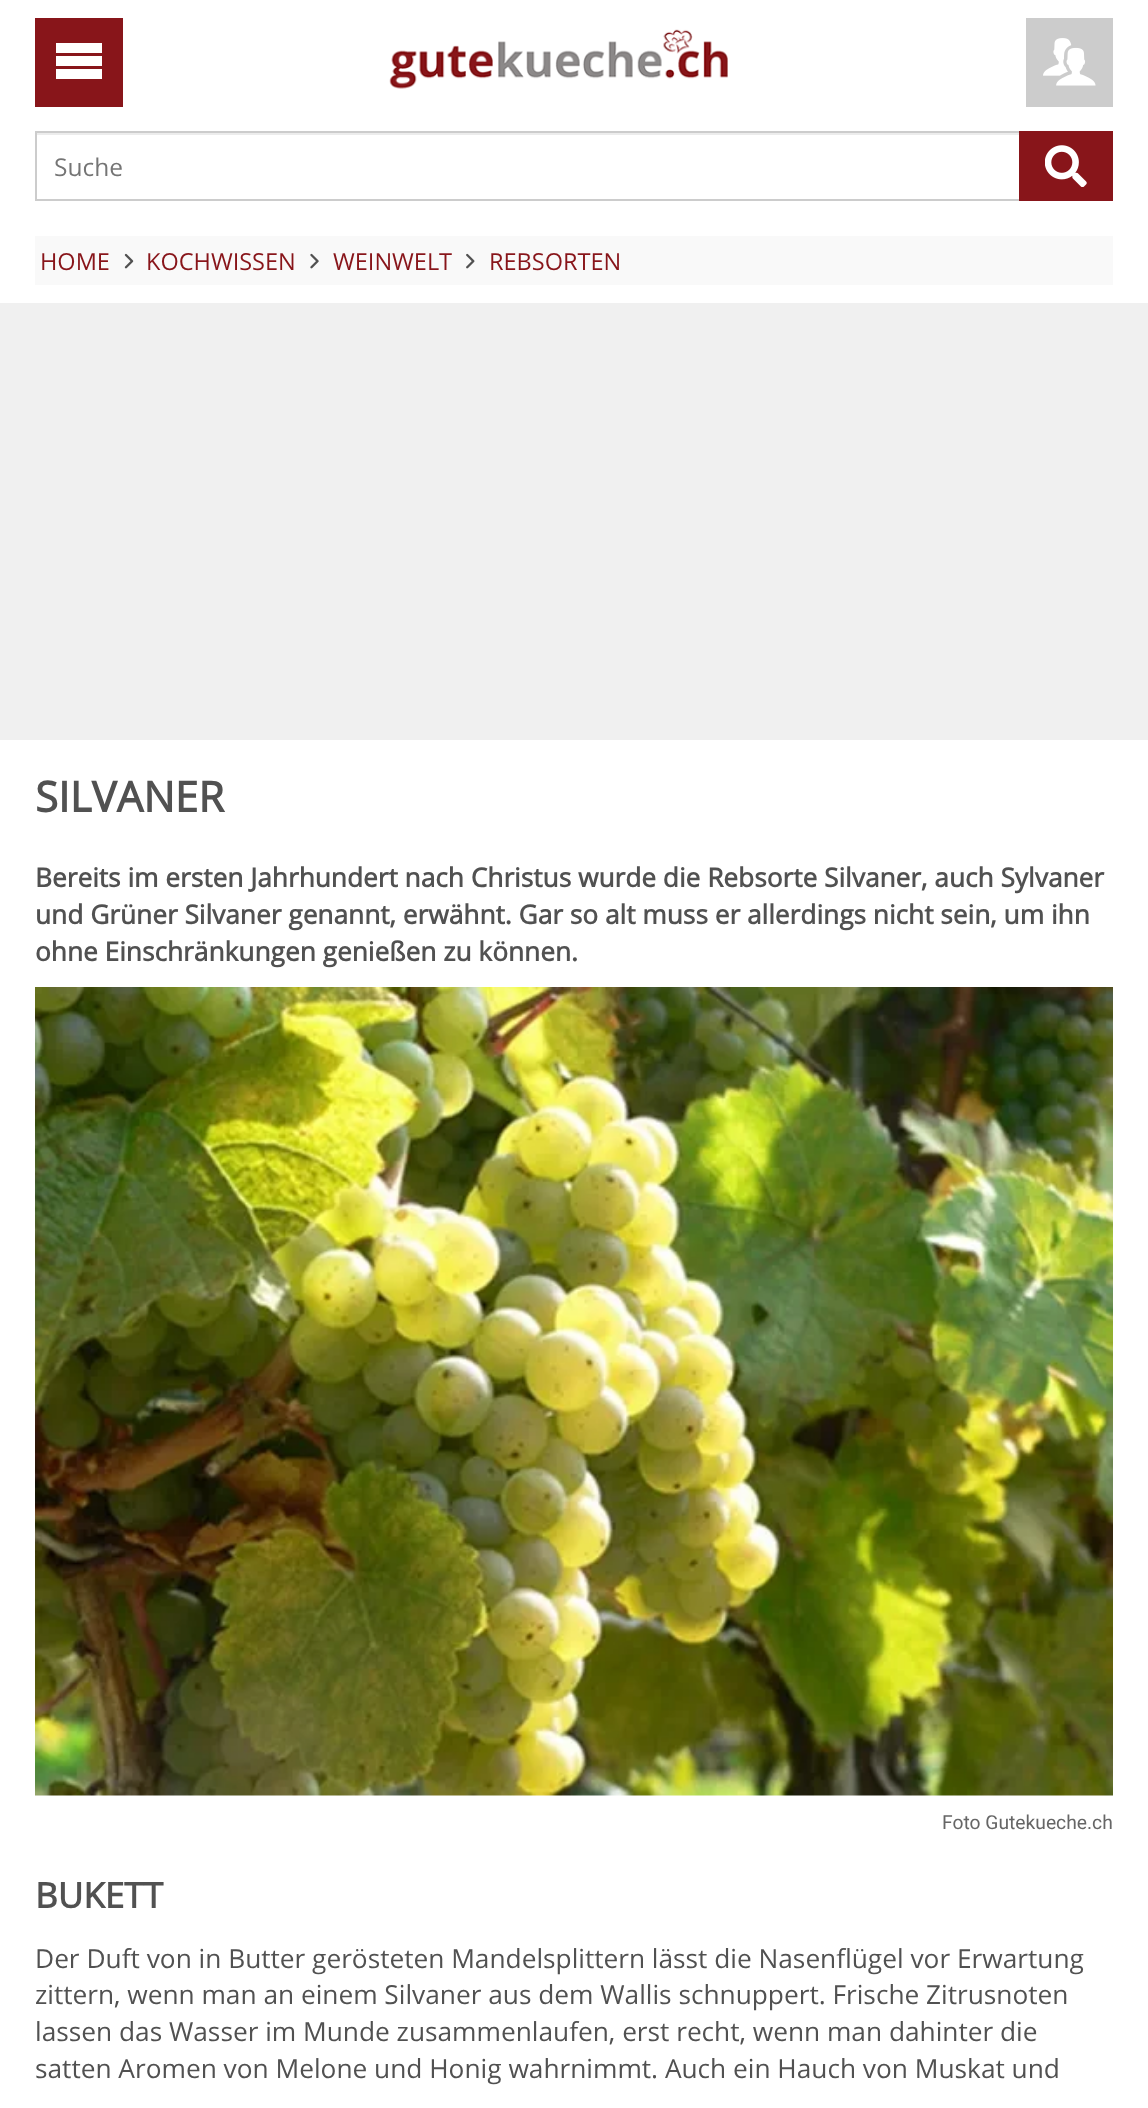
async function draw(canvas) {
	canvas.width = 1148;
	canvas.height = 2108;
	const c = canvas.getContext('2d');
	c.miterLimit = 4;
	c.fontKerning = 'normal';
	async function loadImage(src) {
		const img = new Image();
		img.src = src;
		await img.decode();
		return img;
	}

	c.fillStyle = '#fff';
	c.fillRect(0, 0, 1148, 2108);
	c.fillStyle = '#88151a';
	c.fillRect(35, 18, 88, 89);
	c.fillStyle = '#fff';
	c.beginPath();
	c.moveTo(56, 43);
	c.lineTo(102, 43);
	c.lineTo(102, 53);
	c.lineTo(56, 53);
	c.closePath();
	c.moveTo(56, 56);
	c.lineTo(102, 56);
	c.lineTo(102, 66);
	c.lineTo(56, 66);
	c.closePath();
	c.moveTo(56, 69);
	c.lineTo(102, 69);
	c.lineTo(102, 79);
	c.lineTo(56, 79);
	c.closePath();
	c.fill();
	c.drawImage(await loadImage('img1.png'), 389, 29, 339, 60);
	c.fillStyle = '#ccc';
	c.fillRect(1026, 18, 87, 89);
	c.drawImage(await loadImage('img2.png'), 1043, 38, 53, 48);
	c.fillStyle = '#ececec';
	c.fillRect(37, 133, 982, 2);
	c.strokeStyle = '#ccc';
	c.lineWidth = 2;
	c.strokeRect(36, 132, 1076, 68);
	c.font = '24.5px Open Sans';
	c.fillStyle = '#757575';
	c.fillText('Suche', 54, 176);
	c.fillStyle = '#88151a';
	c.fillRect(1019, 131, 94, 70);
	c.drawImage(await loadImage('img3.png'), 1045, 145, 42, 42);
	c.fillStyle = '#f9f9f9';
	c.fillRect(35, 236, 1078, 49);
	c.font = '23.5px Open Sans';
	c.fillStyle = '#88151a';
	c.fillText('HOME', 40, 270);
	c.drawImage(await loadImage('img4.png'), 124, 253, 10, 16);
	c.fillText('KOCHWISSEN', 146, 270);
	c.drawImage(await loadImage('img5.png'), 310, 253, 9, 16);
	c.fillText('WEINWELT', 333, 270);
	c.drawImage(await loadImage('img6.png'), 466, 253, 9, 16);
	c.fillText('REBSORTEN', 489, 270);
	c.fillStyle = '#f0f0f0';
	c.fillRect(0, 303, 1148, 437);
	c.font = 'bold 42px Open Sans';
	c.fillStyle = '#515151';
	c.fillText('SILVANER', 35, 812);
	c.font = 'bold 26.25px Open Sans';
	for (const [text, x, y] of [
		['Bereits im ersten Jahrhundert nach Christus wurde die Rebsorte Silvaner, auch Sylvaner', 35, 887],
		['und Grüner Silvaner genannt, erwähnt. Gar so alt muss er allerdings nicht sein, um ihn', 35, 924],
		['ohne Einschränkungen genießen zu können.', 35, 961],
	]) {
		c.fillText(text, x, y);
	}
	c.drawImage(await loadImage('img7.png'), 35, 987, 1078, 809);
	c.font = '19.25px Roboto';
	c.fillStyle = '#666';
	c.fillText('Foto Gutekueche.ch', 942, 1829);
	c.font = 'bold 35px Open Sans';
	c.fillStyle = '#515151';
	c.fillText('BUKETT', 35, 1908);
	c.font = '26.25px Open Sans';
	for (const [text, x, y] of [
		['Der Duft von in Butter gerösteten Mandelsplittern lässt die Nasenflügel vor Erwartung', 35, 1968],
		['zittern, wenn man an einem Silvaner aus dem Wallis schnuppert. Frische Zitrusnoten', 35, 2004],
		['lassen das Wasser im Munde zusammenlaufen, erst recht, wenn man dahinter die', 35, 2041],
		['satten Aromen von Melone und Honig wahrnimmt. Auch ein Hauch von Muskat und', 35, 2078],
	]) {
		c.fillText(text, x, y);
	}
}

draw(document.querySelector('canvas'));
